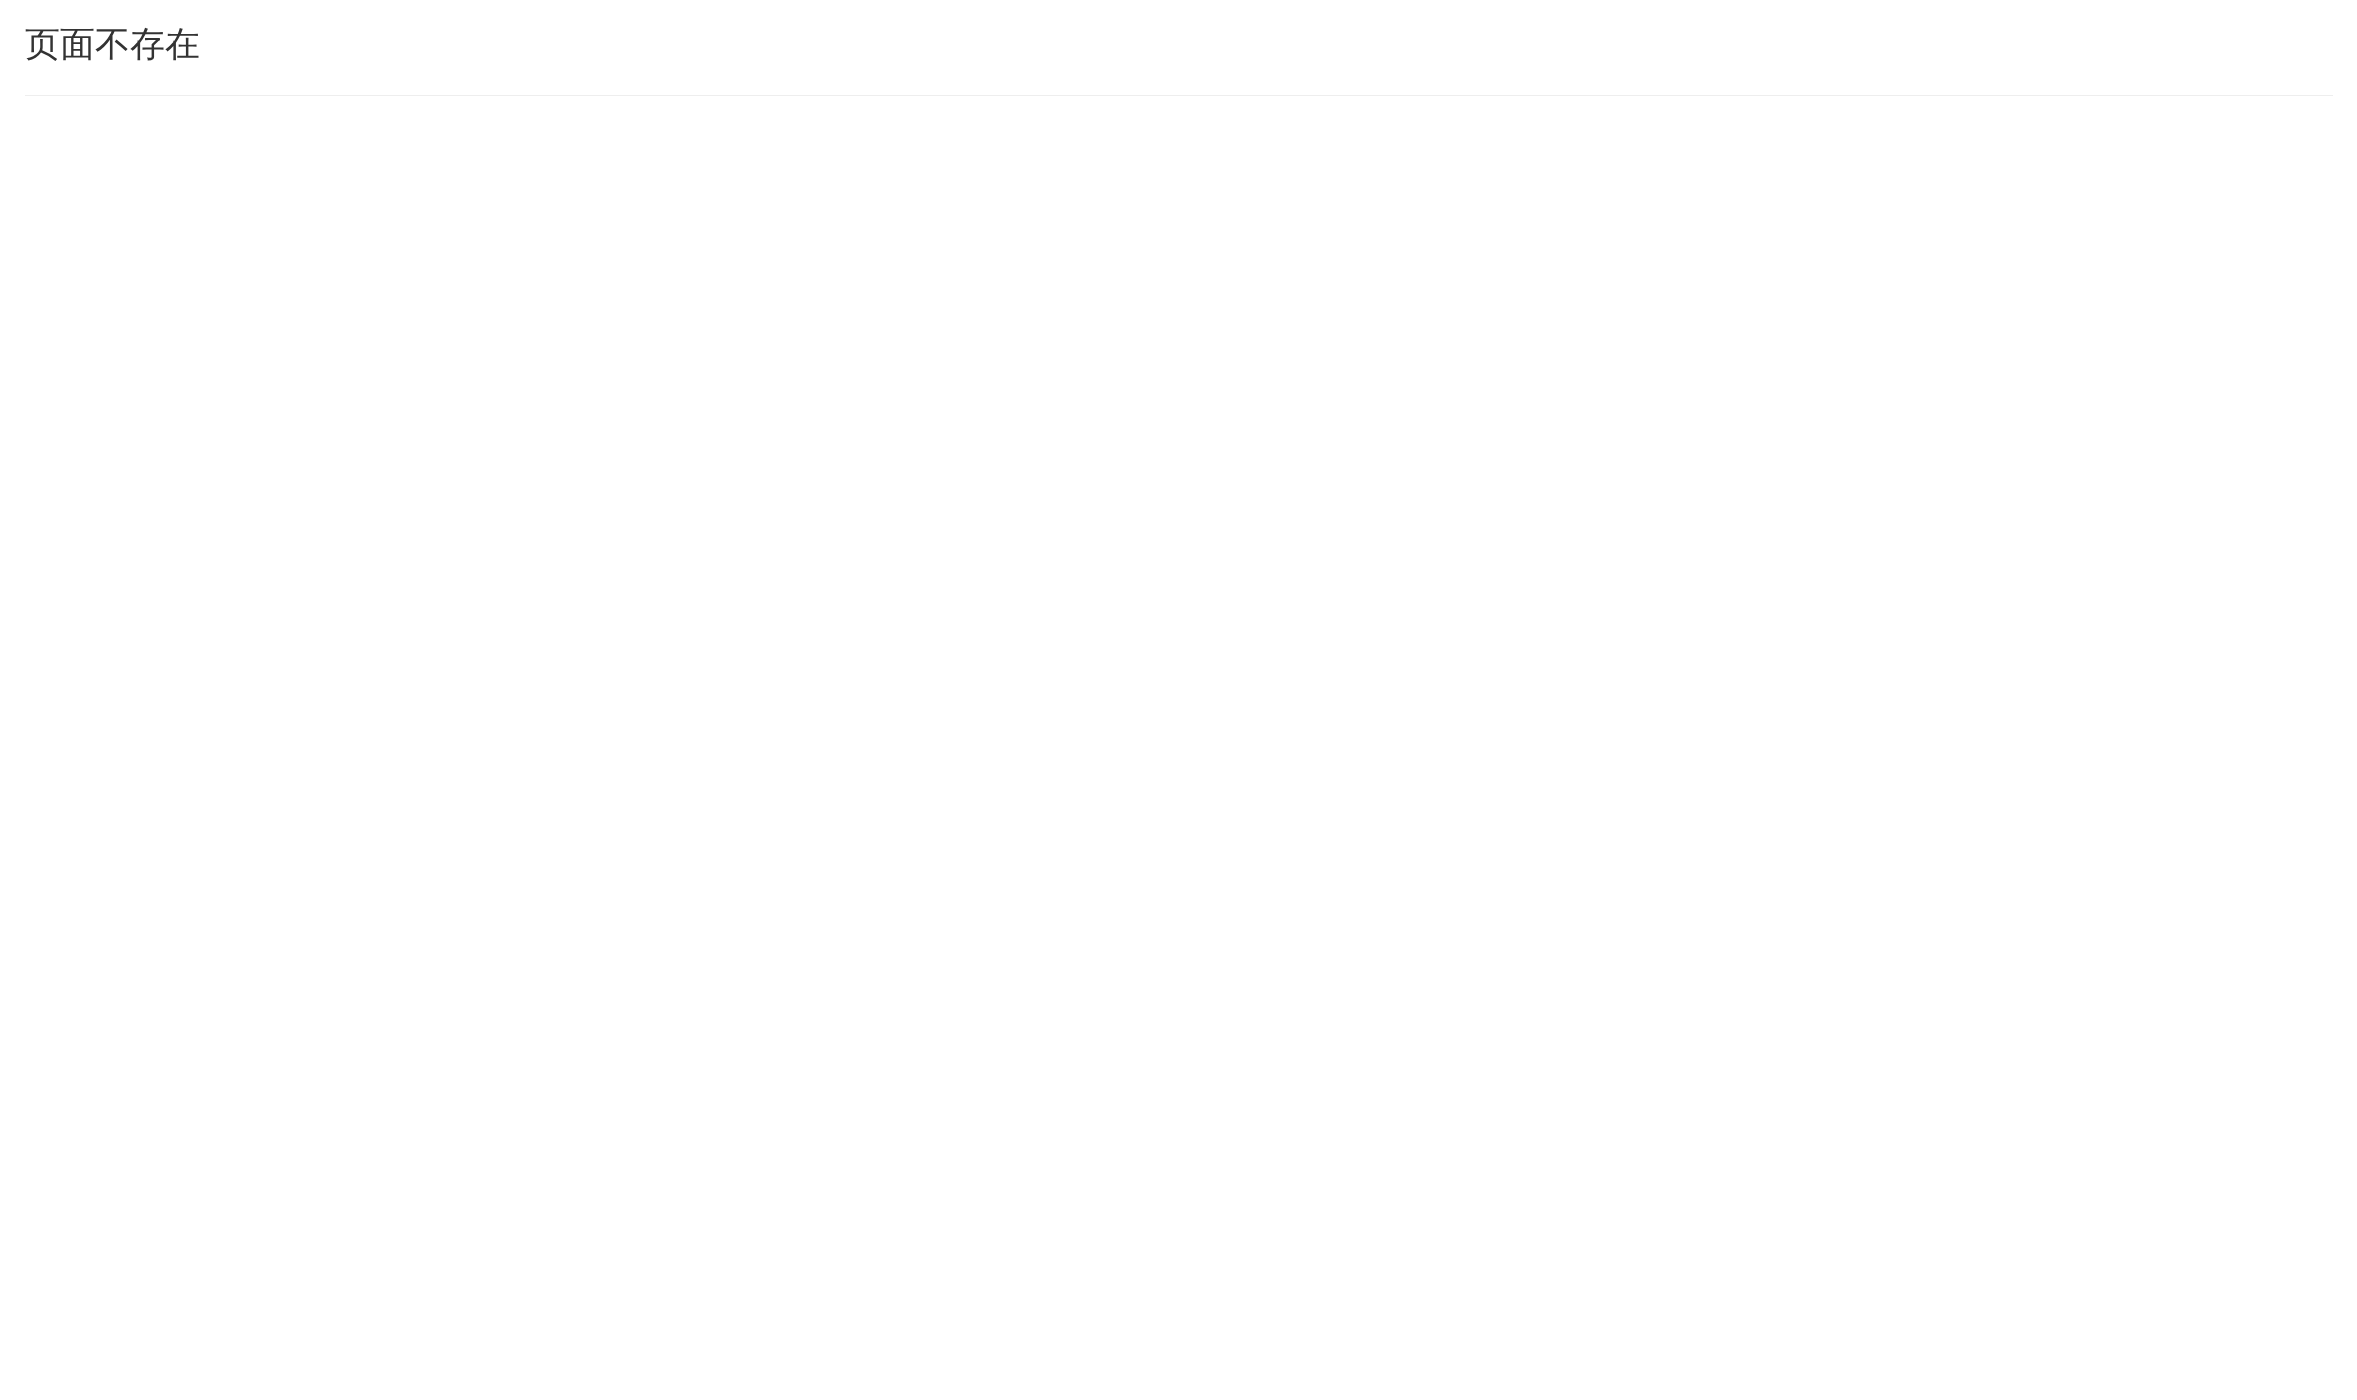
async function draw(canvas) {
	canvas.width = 2357;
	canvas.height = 1400;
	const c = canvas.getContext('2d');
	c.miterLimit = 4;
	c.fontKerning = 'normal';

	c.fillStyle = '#fff';
	c.fillRect(0, 0, 2357, 1400);
	c.font = '500 35px WenQuanYi Zen Hei';
	c.fillStyle = '#333';
	c.fillText('页面不存在', 25, 56);
	c.fillStyle = '#eee';
	c.fillRect(25, 95, 2308, 1);
}

draw(document.querySelector('canvas'));
